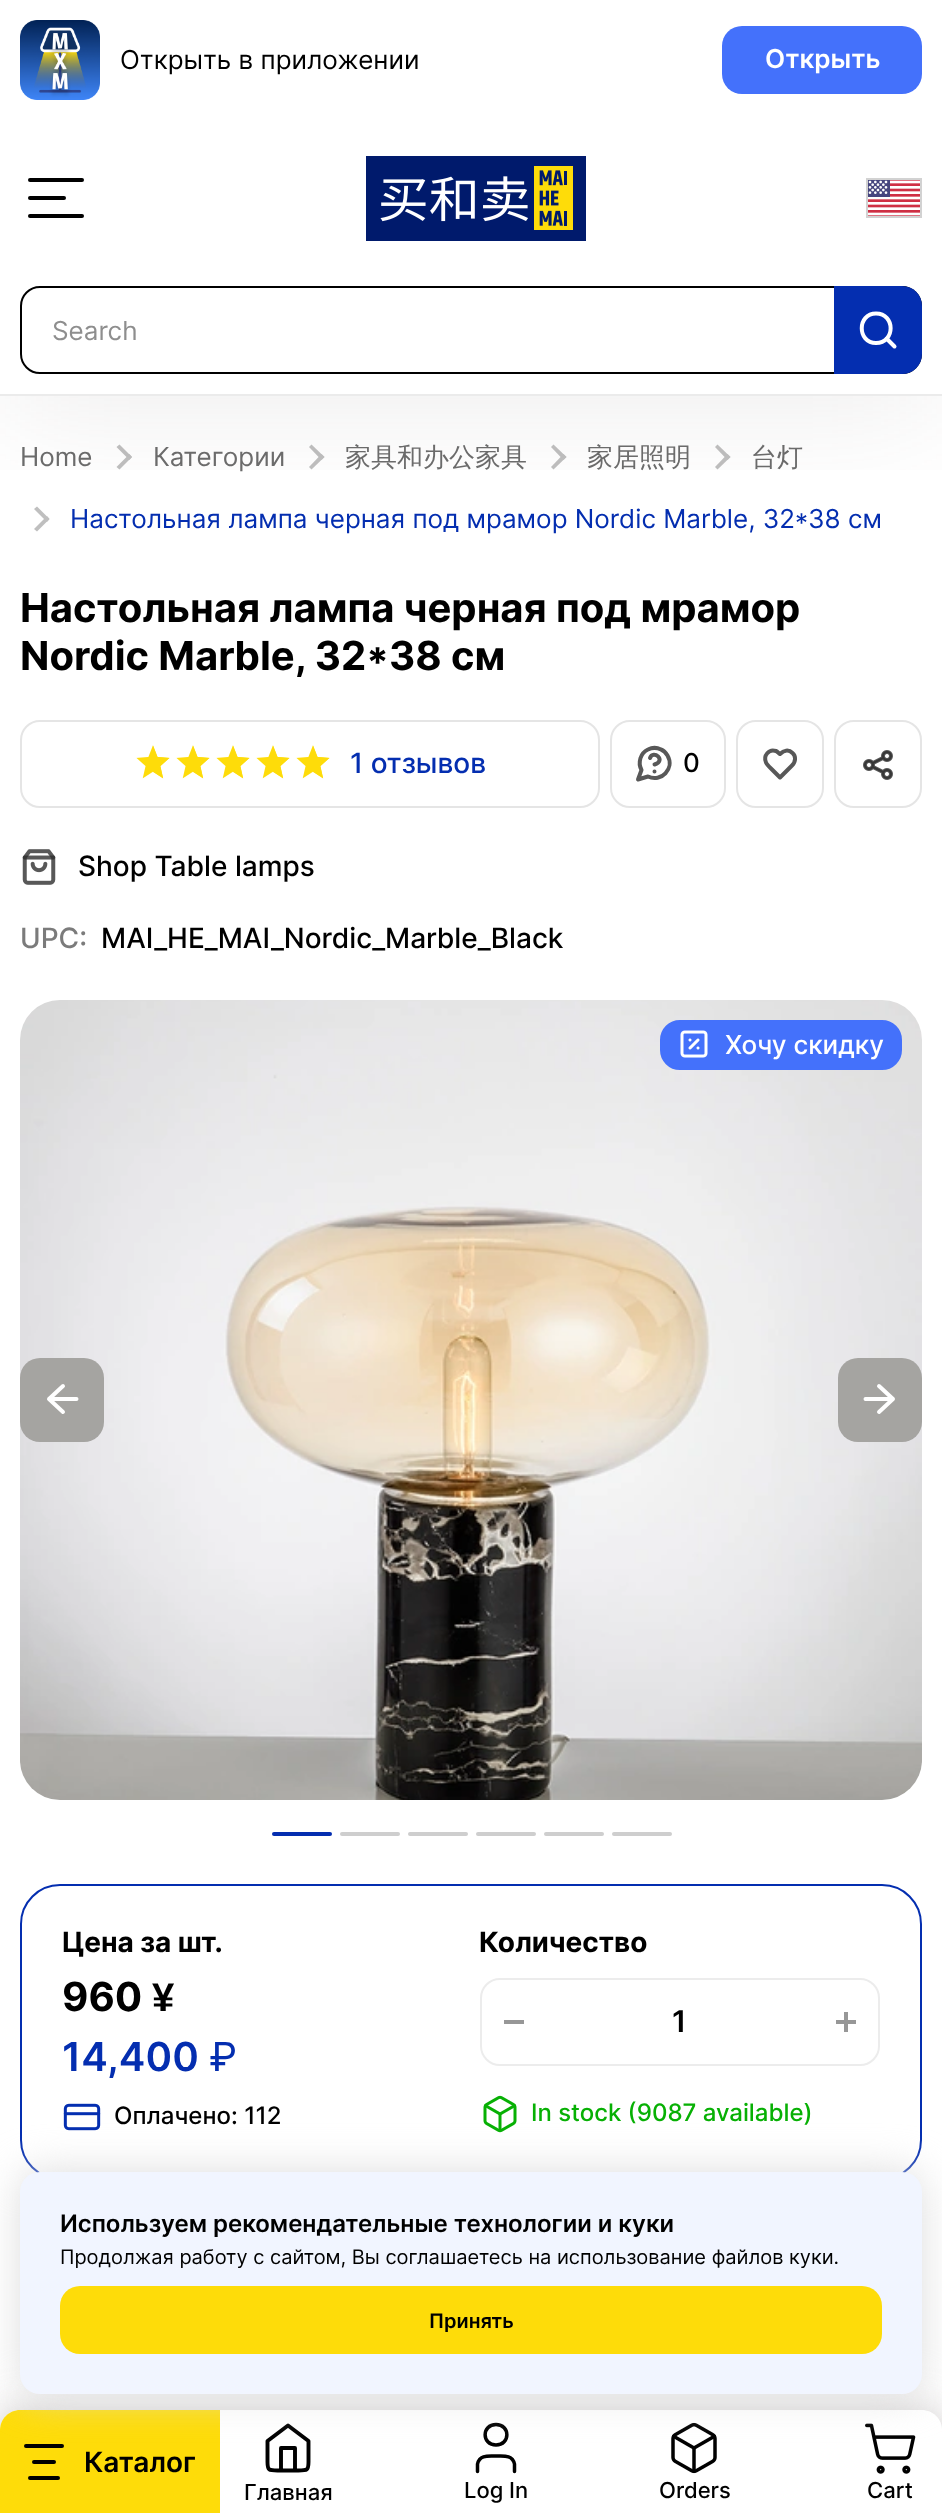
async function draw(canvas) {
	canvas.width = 942;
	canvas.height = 2513;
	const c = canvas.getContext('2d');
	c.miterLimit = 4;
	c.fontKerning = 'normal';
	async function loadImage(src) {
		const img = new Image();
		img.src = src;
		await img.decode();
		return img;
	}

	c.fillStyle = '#fff';
	c.fillRect(0, 0, 942, 2513);
	c.fillStyle = '#bfbfbf';
	c.beginPath();
	c.moveTo(119.5, 444.5);
	c.lineTo(132, 457);
	c.lineTo(129.5, 460);
	c.lineTo(116.5, 447);
	c.closePath();
	c.fill();
	c.beginPath();
	c.moveTo(129.5, 454);
	c.lineTo(132, 457);
	c.lineTo(119.5, 469.5);
	c.lineTo(116.5, 467);
	c.closePath();
	c.fill();
	c.beginPath();
	c.moveTo(311.5, 444.5);
	c.lineTo(324.5, 457);
	c.lineTo(321.5, 460);
	c.lineTo(309, 447);
	c.closePath();
	c.fill();
	c.beginPath();
	c.moveTo(321.5, 454);
	c.lineTo(324.5, 457);
	c.lineTo(311.5, 469.5);
	c.lineTo(309, 467);
	c.closePath();
	c.fill();
	c.beginPath();
	c.moveTo(553.5, 444.5);
	c.lineTo(566.5, 457);
	c.lineTo(563.5, 460);
	c.lineTo(551, 447);
	c.closePath();
	c.fill();
	c.beginPath();
	c.moveTo(563.5, 454);
	c.lineTo(566.5, 457);
	c.lineTo(553.5, 469.5);
	c.lineTo(551, 467);
	c.closePath();
	c.fill();
	c.beginPath();
	c.moveTo(717.5, 444.5);
	c.lineTo(730.5, 457);
	c.lineTo(727.5, 460);
	c.lineTo(715, 447);
	c.closePath();
	c.fill();
	c.beginPath();
	c.moveTo(727.5, 454);
	c.lineTo(730.5, 457);
	c.lineTo(717.5, 469.5);
	c.lineTo(715, 467);
	c.closePath();
	c.fill();
	c.beginPath();
	c.moveTo(37, 506.5);
	c.lineTo(49.5, 519);
	c.lineTo(47, 522);
	c.lineTo(34, 509);
	c.closePath();
	c.fill();
	c.beginPath();
	c.moveTo(47, 516);
	c.lineTo(49.5, 519);
	c.lineTo(37, 531.5);
	c.lineTo(34, 529);
	c.closePath();
	c.fill();
	c.save();
	c.beginPath();
	c.rect(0, 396, 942, 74);
	c.clip();
	c.fillStyle = '#766f6f21';
	c.filter = 'blur(65px)';
	c.beginPath();
	c.rect(0, 8, 942, 396);
	c.fill();
	c.filter = 'none';
	c.restore();
	c.fillStyle = '#ebebeb';
	c.fillRect(0, 394, 942, 2);
	c.drawImage(await loadImage('img1.png'), 20, 20, 80, 80);
	c.font = '26px "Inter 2"';
	c.fillStyle = '#000';
	c.fillText('Открыть в приложении', 120, 69);
	c.fillStyle = '#4471fb';
	c.beginPath();
	c.roundRect(722, 26, 200, 68, 20);
	c.fill();
	c.font = '600 26px Inter';
	c.fillStyle = '#fff';
	c.fillText('Открыть', 765, 68);
	c.fillStyle = '#000';
	c.beginPath();
	c.roundRect(28, 178, 56, 4, 2);
	c.fill();
	c.beginPath();
	c.roundRect(28, 196, 38, 4, 2);
	c.fill();
	c.beginPath();
	c.roundRect(28, 214, 56, 4, 2);
	c.fill();
	c.drawImage(await loadImage('img2.png'), 366, 156, 220, 85);
	c.drawImage(await loadImage('img3.png'), 868, 180, 52, 36);
	c.strokeStyle = '#d2d2d2';
	c.lineWidth = 2;
	c.strokeRect(867, 179, 54, 38);
	c.beginPath();
	c.roundRect(21, 287, 900, 86, 19);
	c.strokeStyle = '#000';
	c.stroke();
	c.font = '26px "Inter 2"';
	c.fillStyle = '#8e8e8e';
	c.fillText('Search', 52, 340);
	c.fillStyle = '#042eb0';
	c.beginPath();
	c.roundRect(834, 286, 88, 88, [0, 20, 20, 0]);
	c.fill();
	c.beginPath();
	c.moveTo(876, 343);
	c.bezierCurveTo(895.5, 343, 895.5, 313.5, 876, 313.5);
	c.bezierCurveTo(857, 313.5, 857, 343, 876, 343);
	c.closePath();
	c.moveTo(894.5, 346.5);
	c.lineTo(886.5, 338.5);
	c.strokeStyle = '#fff';
	c.lineWidth = 4;
	c.lineCap = 'round';
	c.lineJoin = 'round';
	c.stroke();
	c.fillStyle = '#766f6f66';
	c.filter = 'blur(20px)';
	c.beginPath();
	c.roundRect(0, 2410, 942, 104, 20);
	c.fill();
	c.filter = 'none';
	c.fillStyle = '#fff';
	c.beginPath();
	c.moveTo(20, 2410);
	c.lineTo(922, 2410);
	c.bezierCurveTo(933, 2410, 942, 2419, 942, 2430);
	c.lineTo(942, 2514);
	c.lineTo(0, 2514);
	c.lineTo(0, 2430);
	c.bezierCurveTo(0, 2419, 9, 2410, 20, 2410);
	c.closePath();
	c.fill();
	c.fillStyle = '#fedc09';
	c.beginPath();
	c.moveTo(20, 2410);
	c.lineTo(220, 2410);
	c.lineTo(220, 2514);
	c.lineTo(0, 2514);
	c.lineTo(0, 2430);
	c.bezierCurveTo(0, 2419, 9, 2410, 20, 2410);
	c.closePath();
	c.fill();
	c.beginPath();
	c.moveTo(62, 2446);
	c.lineTo(26, 2446);
	c.moveTo(54, 2462);
	c.lineTo(34, 2462);
	c.moveTo(58, 2478);
	c.lineTo(30, 2478);
	c.strokeStyle = '#000';
	c.stroke();
	c.font = '600 28px Inter';
	c.fillStyle = '#000';
	c.fillText('Каталог', 84, 2472);
	c.beginPath();
	c.moveTo(267.5, 2441);
	c.lineTo(288, 2425.5);
	c.lineTo(308.5, 2441);
	c.lineTo(308.5, 2462);
	c.bezierCurveTo(308.5, 2470.5, 307, 2470.5, 298.5, 2470.5);
	c.lineTo(277.5, 2470.5);
	c.bezierCurveTo(269, 2470.5, 267.5, 2470.5, 267.5, 2462);
	c.closePath();
	c.moveTo(281, 2470.5);
	c.lineTo(281, 2448);
	c.lineTo(295, 2448);
	c.lineTo(295, 2470.5);
	c.lineWidth = 3.9;
	c.stroke();
	c.font = '500 22px Inter';
	c.fillText('Главная', 244, 2500);
	c.beginPath();
	c.moveTo(514.5, 2471.5);
	c.lineTo(514.5, 2464);
	c.bezierCurveTo(512.5, 2454.5, 503.5, 2456, 496, 2456);
	c.bezierCurveTo(488.5, 2456, 479.5, 2454.5, 477.5, 2464);
	c.lineTo(477.5, 2471.5);
	c.moveTo(496, 2445);
	c.bezierCurveTo(510.5, 2445, 510.5, 2424.5, 496, 2424.5);
	c.bezierCurveTo(481.5, 2424.5, 481.5, 2445, 496, 2445);
	c.closePath();
	c.lineWidth = 3.5;
	c.stroke();
	c.fillText('Log In', 464, 2498);
	c.drawImage(await loadImage('img4.png'), 671, 2422, 46, 52);
	c.fillText('Orders', 659, 2498);
	c.drawImage(await loadImage('img5.png'), 865, 2423, 51, 51);
	c.fillText('Cart', 867, 2498);
	c.font = '26px "Inter 2"';
	c.fillStyle = '#6b6b6b';
	c.fillText('Home', 20, 466);
	c.fillText('Категории', 153, 466);
	c.font = '500 26px WenQuanYi Zen Hei';
	for (const [text, x, y] of [
		['家具和办公家具', 345, 466],
		['家居照明', 587, 466],
		['台灯', 751, 466],
	]) {
		c.fillText(text, x, y);
	}
	c.font = '26px "Inter 2"';
	c.fillStyle = '#042eb0';
	c.fillText('Настольная лампа черная под мрамор Nordic Marble, 32*38 см', 70, 528);
	c.font = 'bold 40px Inter';
	c.fillStyle = '#000';
	c.fillText('Настольная лампа черная под мрамор', 20, 622);
	c.fillText('Nordic Marble, 32*38 см', 20, 670);
	c.beginPath();
	c.roundRect(21, 721, 578, 86, 19);
	c.strokeStyle = '#e5e5e5';
	c.lineWidth = 2;
	c.lineJoin = 'miter';
	c.stroke();
	c.drawImage(await loadImage('img6.png'), 136, 745, 34, 34);
	c.drawImage(await loadImage('img6.png'), 176, 745, 34, 34);
	c.drawImage(await loadImage('img6.png'), 216, 745, 34, 34);
	c.drawImage(await loadImage('img6.png'), 256, 745, 34, 34);
	c.drawImage(await loadImage('img6.png'), 296, 745, 34, 34);
	c.font = '500 28px Inter';
	c.fillStyle = '#042eb0';
	c.fillText('1 отзывов', 350, 773);
	c.beginPath();
	c.roundRect(611, 721, 114, 86, 19);
	c.stroke();
	c.beginPath();
	c.moveTo(650, 758);
	c.bezierCurveTo(653, 749, 667, 760.5, 654.5, 764.5);
	c.moveTo(654.5, 771.5);
	c.lineTo(654.5, 771.5);
	c.moveTo(648, 776.5);
	c.bezierCurveTo(661, 783, 675, 768.5, 667.5, 755.5);
	c.bezierCurveTo(666, 753, 664, 750.5, 661, 749.5);
	c.bezierCurveTo(657, 747.5, 652, 747.5, 648, 749.5);
	c.bezierCurveTo(640.5, 753, 637.5, 762.5, 641.5, 770);
	c.lineTo(638, 779.5);
	c.closePath();
	c.strokeStyle = '#585858';
	c.lineWidth = 4;
	c.lineJoin = 'round';
	c.stroke();
	c.font = '500 26px Inter';
	c.fillStyle = '#000';
	c.fillText('0', 683, 772);
	c.beginPath();
	c.roundRect(737, 721, 86, 86, 19);
	c.strokeStyle = '#e5e5e5';
	c.lineWidth = 2;
	c.lineJoin = 'miter';
	c.stroke();
	c.beginPath();
	c.moveTo(792.5, 753);
	c.bezierCurveTo(788.5, 749, 783.5, 750.5, 780, 754);
	c.bezierCurveTo(778.5, 753, 777.5, 751.5, 776, 751);
	c.bezierCurveTo(769, 748.5, 763, 755.5, 766, 762.5);
	c.bezierCurveTo(767, 765, 770, 767.5, 772, 769.5);
	c.lineTo(780, 777.5);
	c.lineTo(792, 765.5);
	c.bezierCurveTo(796, 761.5, 796, 756, 792.5, 753);
	c.closePath();
	c.strokeStyle = '#585858';
	c.lineWidth = 4;
	c.lineJoin = 'round';
	c.stroke();
	c.beginPath();
	c.roundRect(835, 721, 86, 86, 19);
	c.strokeStyle = '#e5e5e5';
	c.lineWidth = 2;
	c.lineJoin = 'miter';
	c.stroke();
	c.drawImage(await loadImage('img7.png'), 863, 750, 30, 30);
	c.drawImage(await loadImage('img8.png'), 22, 849, 34, 36);
	c.font = '500 28px Inter';
	c.fillText('Shop Table lamps', 78, 876);
	c.fillStyle = '#7b7b7b';
	c.fillText('UPC:', 20, 948);
	c.fillStyle = '#000';
	c.fillText('MAI_HE_MAI_Nordic_Marble_Black', 101, 948);
	c.drawImage(await loadImage('img9.png'), 20, 1000, 902, 800);
	c.fillStyle = '#a5a4a1';
	c.beginPath();
	c.roundRect(20, 1358, 84, 84, 20);
	c.fill();
	c.beginPath();
	c.moveTo(76.5, 1399);
	c.lineTo(49, 1399);
	c.moveTo(63, 1412);
	c.lineTo(49, 1399);
	c.lineTo(63, 1386);
	c.strokeStyle = '#fff';
	c.lineWidth = 4;
	c.lineJoin = 'round';
	c.stroke();
	c.beginPath();
	c.roundRect(838, 1358, 84, 84, 20);
	c.fill();
	c.beginPath();
	c.moveTo(865.5, 1399);
	c.lineTo(893, 1399);
	c.moveTo(879, 1386);
	c.lineTo(893, 1399);
	c.lineTo(879, 1412);
	c.stroke();
	c.fillStyle = '#042eb0';
	c.beginPath();
	c.roundRect(272, 1832, 60, 4, 2);
	c.fill();
	c.fillStyle = '#cecece';
	c.beginPath();
	c.roundRect(340, 1832, 60, 4, 2);
	c.fill();
	c.beginPath();
	c.roundRect(408, 1832, 60, 4, 2);
	c.fill();
	c.beginPath();
	c.roundRect(476, 1832, 60, 4, 2);
	c.fill();
	c.beginPath();
	c.roundRect(544, 1832, 60, 4, 2);
	c.fill();
	c.beginPath();
	c.roundRect(612, 1832, 60, 4, 2);
	c.fill();
	c.fillStyle = '#4471fb';
	c.beginPath();
	c.roundRect(661, 1021, 240, 48, 19);
	c.fill();
	c.strokeStyle = '#4471fb';
	c.lineWidth = 2;
	c.lineJoin = 'miter';
	c.stroke();
	c.drawImage(await loadImage('img10.png'), 680, 1030, 28, 28);
	c.font = '500 26px Inter';
	c.fillStyle = '#fff';
	c.fillText('Хочу скидку', 725, 1054);
	c.beginPath();
	c.roundRect(21, 1885, 900, 294, 39);
	c.strokeStyle = '#042eb0';
	c.stroke();
	c.font = 'bold 28px Inter';
	c.fillStyle = '#000';
	c.fillText('Цена за шт.', 62, 1952);
	c.font = 'bold 40px Inter';
	c.fillText('960', 62, 2011);
	c.font = 'bold 40px Liberation Sans';
	c.fillText('¥', 152, 2011);
	c.font = '600 40px Inter';
	c.fillStyle = '#042eb0';
	c.fillText('14,400', 62, 2071);
	c.font = '40px Inter';
	c.fillText('₽', 209, 2071);
	c.drawImage(await loadImage('img11.png'), 63, 2103, 38, 28);
	c.font = '500 24px Inter';
	c.fillStyle = '#000';
	c.fillText('Оплачено: 112', 114, 2124);
	c.font = 'bold 28px Inter';
	c.fillText('Количество', 479, 1952);
	c.beginPath();
	c.roundRect(481, 1979, 398, 86, 19);
	c.strokeStyle = '#ececec';
	c.stroke();
	c.fillStyle = '#979797';
	c.fillRect(504, 2020, 20, 4);
	c.font = '600 30px Inter';
	c.fillStyle = '#000';
	c.fillText('1', 672, 2032);
	c.fillStyle = '#979797';
	c.fillRect(844, 2012, 4, 20);
	c.fillRect(836, 2020, 20, 4);
	c.drawImage(await loadImage('img12.png'), 483, 2095, 34, 38);
	c.font = '500 24px Inter';
	c.fillStyle = '#07b004';
	c.fillText('In stock (9087 available)', 531, 2121);
	c.fillStyle = '#ddd';
	c.filter = 'blur(20px)';
	c.beginPath();
	c.roundRect(20, 2172, 902, 222, 20);
	c.fill();
	c.filter = 'none';
	c.fillStyle = '#f1f5ff';
	c.beginPath();
	c.roundRect(20, 2172, 902, 222, 20);
	c.fill();
	c.font = '600 24px Inter';
	c.fillStyle = '#000';
	c.fillText('Используем рекомендательные технологии и куки', 60, 2232);
	c.font = '20px "Inter 2"';
	c.fillText('Продолжая работу с сайтом, Вы соглашаетесь на использование файлов куки.', 60, 2264);
	c.fillStyle = '#fedc09';
	c.beginPath();
	c.roundRect(60, 2286, 822, 68, 20);
	c.fill();
	c.font = '600 20px Inter';
	c.fillStyle = '#000';
	c.fillText('Принять', 429, 2328);
}

draw(document.querySelector('canvas'));
